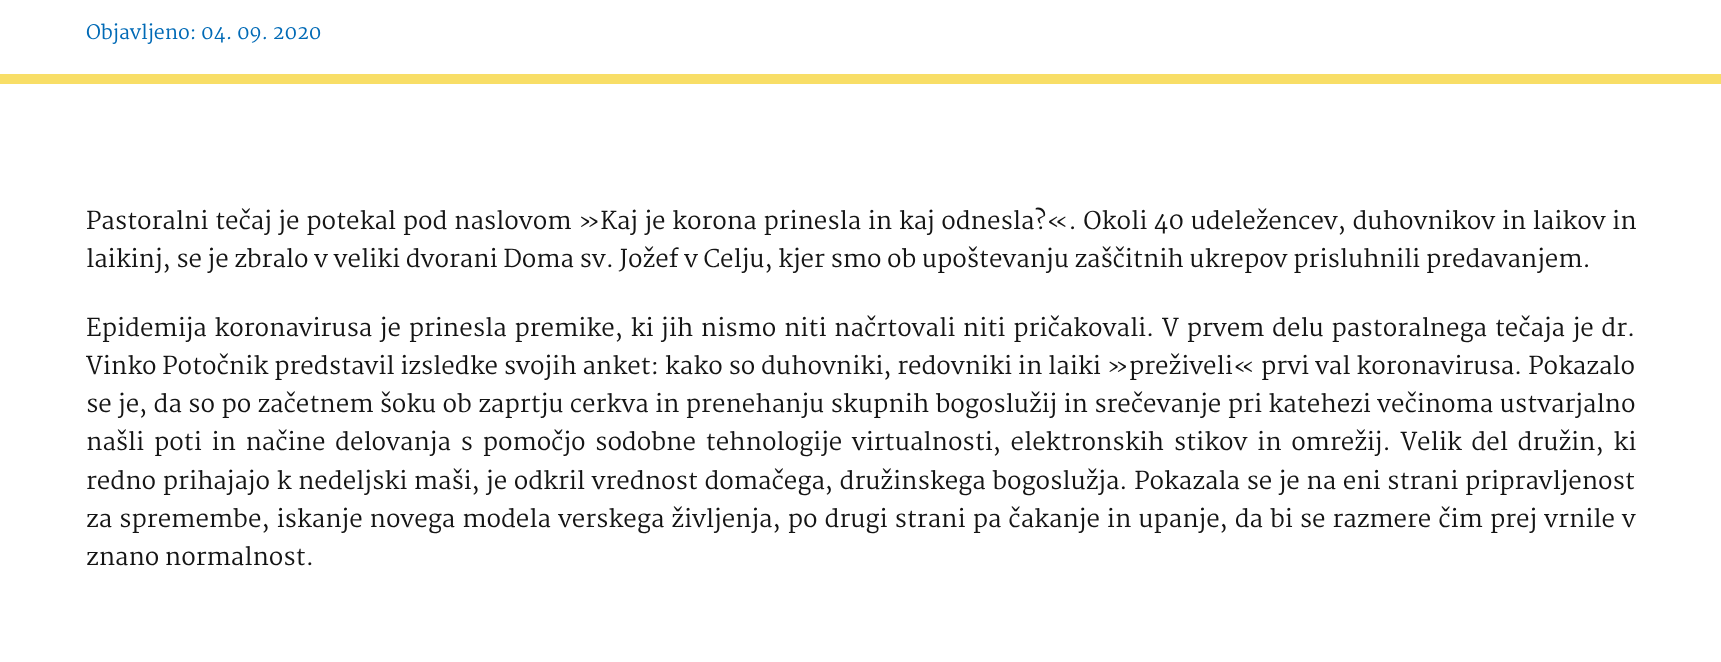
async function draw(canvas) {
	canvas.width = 1721;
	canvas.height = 662;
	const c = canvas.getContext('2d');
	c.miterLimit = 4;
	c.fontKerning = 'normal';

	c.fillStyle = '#fff';
	c.fillRect(0, 0, 1721, 662);
	c.fillStyle = '#f8de67';
	c.fillRect(0, 74, 1721, 10);
	c.font = '19.5px Martel';
	c.fillStyle = '#006ab6';
	c.fillText('Objavljeno: 04. 09. 2020', 86, 39);
	c.wordSpacing = '1px';
	c.font = '24px Martel';
	c.fillStyle = '#141414';
	c.fillText('Pastoralni tečaj je potekal pod naslovom »Kaj je korona prinesla in kaj odnesla?«. Okoli 40 udeležencev, duhovnikov in laikov in', 86, 229);
	c.wordSpacing = '0px';
	c.fillText('laikinj, se je zbralo v veliki dvorani Doma sv. Jožef v Celju, kjer smo ob upoštevanju zaščitnih ukrepov prisluhnili predavanjem.', 86, 267);
	c.wordSpacing = '2.1px';
	c.fillText('Epidemija koronavirusa je prinesla premike, ki jih nismo niti načrtovali niti pričakovali. V prvem delu pastoralnega tečaja je dr.', 86, 336);
	c.wordSpacing = '0.25px';
	c.fillText('Vinko Potočnik predstavil izsledke svojih anket: kako so duhovniki, redovniki in laiki »preživeli« prvi val koronavirusa. Pokazalo', 86, 374);
	c.wordSpacing = '0.75px';
	c.fillText('se je, da so po začetnem šoku ob zaprtju cerkva in prenehanju skupnih bogoslužij in srečevanje pri katehezi večinoma ustvarjalno', 86, 412);
	c.wordSpacing = '4.1px';
	c.fillText('našli poti in načine delovanja s pomočjo sodobne tehnologije virtualnosti, elektronskih stikov in omrežij. Velik del družin, ki', 86, 450);
	c.wordSpacing = '1px';
	c.fillText('redno prihajajo k nedeljski maši, je odkril vrednost domačega, družinskega bogoslužja. Pokazala se je na eni strani pripravljenost', 86, 489);
	c.wordSpacing = '1.4px';
	c.fillText('za spremembe, iskanje novega modela verskega življenja, po drugi strani pa čakanje in upanje, da bi se razmere čim prej vrnile v', 86, 527);
	c.wordSpacing = '0px';
	c.fillText('znano normalnost.', 86, 565);
}

draw(document.querySelector('canvas'));
